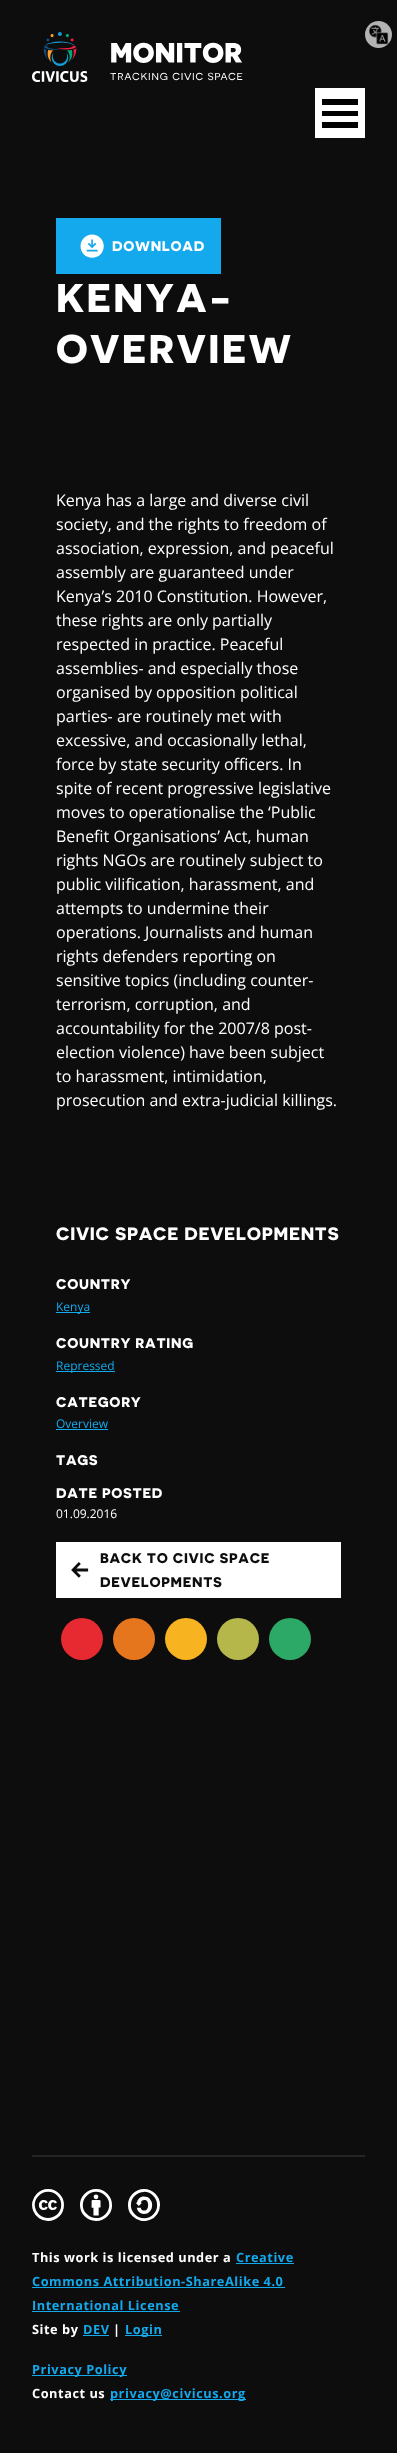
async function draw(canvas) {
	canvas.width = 397;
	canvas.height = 2453;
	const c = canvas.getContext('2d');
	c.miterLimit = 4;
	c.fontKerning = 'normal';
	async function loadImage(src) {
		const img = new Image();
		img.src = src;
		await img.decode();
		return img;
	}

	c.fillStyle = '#0d0d0d';
	c.fillRect(0, 0, 397, 2453);
	c.drawImage(await loadImage('img1.png'), 32, 32, 211, 50);
	for (const [x, y, w, h, color] of [
		[315, 88, 50, 50, '#fff'],
		[322, 111, 36, 5, '#000'],
		[322, 99, 36, 6, '#000'],
		[322, 122, 36, 6, '#000'],
	]) {
		c.fillStyle = color;
		c.fillRect(x, y, w, h);
	}
	c.fillStyle = '#b3b3b3';
	c.beginPath();
	c.arc(378.5, 34.5, 13.5, 0, 2 * Math.PI);
	c.fill();
	c.drawImage(await loadImage('img2.png'), 368, 24, 21, 21);
	c.fillStyle = '#14a9ed';
	c.fillRect(56, 218, 165, 56);
	c.drawImage(await loadImage('img3.png'), 80, 234, 24, 24);
	c.letterSpacing = '0.7px';
	c.font = '14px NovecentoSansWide';
	c.fillStyle = '#fff';
	c.fillText('DOWNLOAD', 112, 251);
	c.letterSpacing = '2.25px';
	c.font = '40px NovecentoSansWide';
	c.fillText('KENYA-', 56, 312);
	c.fillText('OVERVIEW', 56, 363);
	c.letterSpacing = '0px';
	c.font = '16px Open Sans';
	for (const [text, x, y] of [
		['Kenya has a large and diverse civil', 56, 506],
		['society, and the rights to freedom of', 56, 530],
		['association, expression, and peaceful', 56, 554],
		['assembly are guaranteed under', 56, 578],
		['Kenya’s 2010 Constitution. However,', 56, 602],
		['these rights are only partially', 56, 626],
		['respected in practice. Peaceful', 56, 650],
		['assemblies- and especially those', 56, 674],
		['organised by opposition political', 56, 698],
		['parties- are routinely met with', 56, 722],
		['excessive, and occasionally lethal,', 56, 746],
		['force by state security officers. In', 56, 770],
		['spite of recent progressive legislative', 56, 794],
		['moves to operationalise the ‘Public', 56, 818],
		['Benefit Organisations’ Act, human', 56, 842],
		['rights NGOs are routinely subject to', 56, 866],
		['public vilification, harassment, and', 56, 890],
		['attempts to undermine their', 56, 914],
		['operations. Journalists and human', 56, 938],
		['rights defenders reporting on', 56, 962],
		['sensitive topics (including counter-', 56, 986],
		['terrorism, corruption, and', 56, 1010],
		['accountability for the 2007/8 post-', 56, 1034],
		['election violence) have been subject', 56, 1058],
		['to harassment, intimidation,', 56, 1082],
		['prosecution and extra-judicial killings.', 56, 1106],
	]) {
		c.fillText(text, x, y);
	}
	c.letterSpacing = '0.7px';
	c.font = '18px NovecentoSansWide';
	c.fillText('CIVIC SPACE DEVELOPMENTS', 56, 1240);
	c.font = '14px NovecentoSansWide';
	c.fillText('COUNTRY', 56, 1289);
	c.fillStyle = '#14a9ed';
	c.fillRect(56, 1312, 34, 1);
	c.letterSpacing = '0px';
	c.font = '12px Open Sans';
	c.fillText('Kenya', 56, 1311);
	c.letterSpacing = '0.7px';
	c.font = '14px NovecentoSansWide';
	c.fillStyle = '#fff';
	c.fillText('COUNTRY RATING', 56, 1348);
	c.fillStyle = '#14a9ed';
	c.fillRect(56, 1371, 59, 1);
	c.letterSpacing = '0px';
	c.font = '12px Open Sans';
	c.fillText('Repressed', 56, 1370);
	c.letterSpacing = '0.7px';
	c.font = '14px NovecentoSansWide';
	c.fillStyle = '#fff';
	c.fillText('CATEGORY', 56, 1407);
	c.letterSpacing = '0px';
	c.font = '12px Open Sans';
	c.fillStyle = '#14a9ed';
	c.fillText('Overview', 56, 1428);
	c.fillRect(56, 1429, 52, 1);
	c.letterSpacing = '0.7px';
	c.font = '14px NovecentoSansWide';
	c.fillStyle = '#fff';
	c.fillText('TAGS', 56, 1465);
	c.fillText('DATE POSTED', 56, 1498);
	c.letterSpacing = '0px';
	c.font = '12px Open Sans';
	c.fillText('01.09.2016', 56, 1518);
	c.fillRect(56, 1542, 285, 56);
	c.letterSpacing = '0.7px';
	c.font = '14px NovecentoSansWide';
	c.fillStyle = '#0d0d0d';
	c.fillText('BACK TO CIVIC SPACE', 100, 1563);
	c.drawImage(await loadImage('img4.png'), 71, 1562, 18, 16);
	c.fillText('DEVELOPMENTS', 100, 1587);
	c.fillStyle = '#e72932';
	c.beginPath();
	c.arc(82, 1639, 21, 0, 2 * Math.PI);
	c.fill();
	c.fillStyle = '#e6761e';
	c.beginPath();
	c.arc(134, 1639, 21, 0, 2 * Math.PI);
	c.fill();
	c.fillStyle = '#f7b420';
	c.beginPath();
	c.arc(186, 1639, 21, 0, 2 * Math.PI);
	c.fill();
	c.fillStyle = '#b5b74b';
	c.beginPath();
	c.arc(238, 1639, 21, 0, 2 * Math.PI);
	c.fill();
	c.fillStyle = '#2ca867';
	c.beginPath();
	c.arc(290, 1639, 21, 0, 2 * Math.PI);
	c.fill();
	c.fillStyle = '#252524';
	c.fillRect(32, 2155, 333, 2);
	c.drawImage(await loadImage('img5.png'), 32, 2189, 32, 32);
	c.drawImage(await loadImage('img6.png'), 80, 2189, 32, 32);
	c.drawImage(await loadImage('img7.png'), 128, 2189, 32, 32);
	c.letterSpacing = '0.55px';
	c.font = 'bold 12.75px Open Sans';
	c.fillStyle = '#fff';
	c.fillText('This work is licensed under a', 32, 2262);
	c.fillStyle = '#14a9ed';
	c.fillText('Creative', 236, 2262);
	c.fillRect(236, 2263, 58, 1);
	c.fillText('Commons Attribution-ShareAlike 4.0', 32, 2286);
	c.fillRect(32, 2287, 253, 1);
	c.fillText('International License', 32, 2310);
	c.fillRect(32, 2311, 148, 1);
	c.fillStyle = '#fff';
	c.fillText('Site by', 32, 2334);
	c.fillStyle = '#14a9ed';
	c.fillText('DEV', 83, 2334);
	c.fillRect(83, 2335, 26, 1);
	c.fillStyle = '#fff';
	c.fillText('|', 113, 2334);
	c.fillStyle = '#14a9ed';
	c.fillRect(125, 2335, 37, 1);
	c.fillText('Login', 125, 2334);
	c.fillRect(32, 2375, 95, 1);
	c.fillText('Privacy Policy', 32, 2374);
	c.fillStyle = '#fff';
	c.fillText('Contact us', 32, 2398);
	c.fillStyle = '#14a9ed';
	c.fillRect(110, 2399, 136, 1);
	c.fillText('privacy@civicus.org', 110, 2398);
}

draw(document.querySelector('canvas'));
